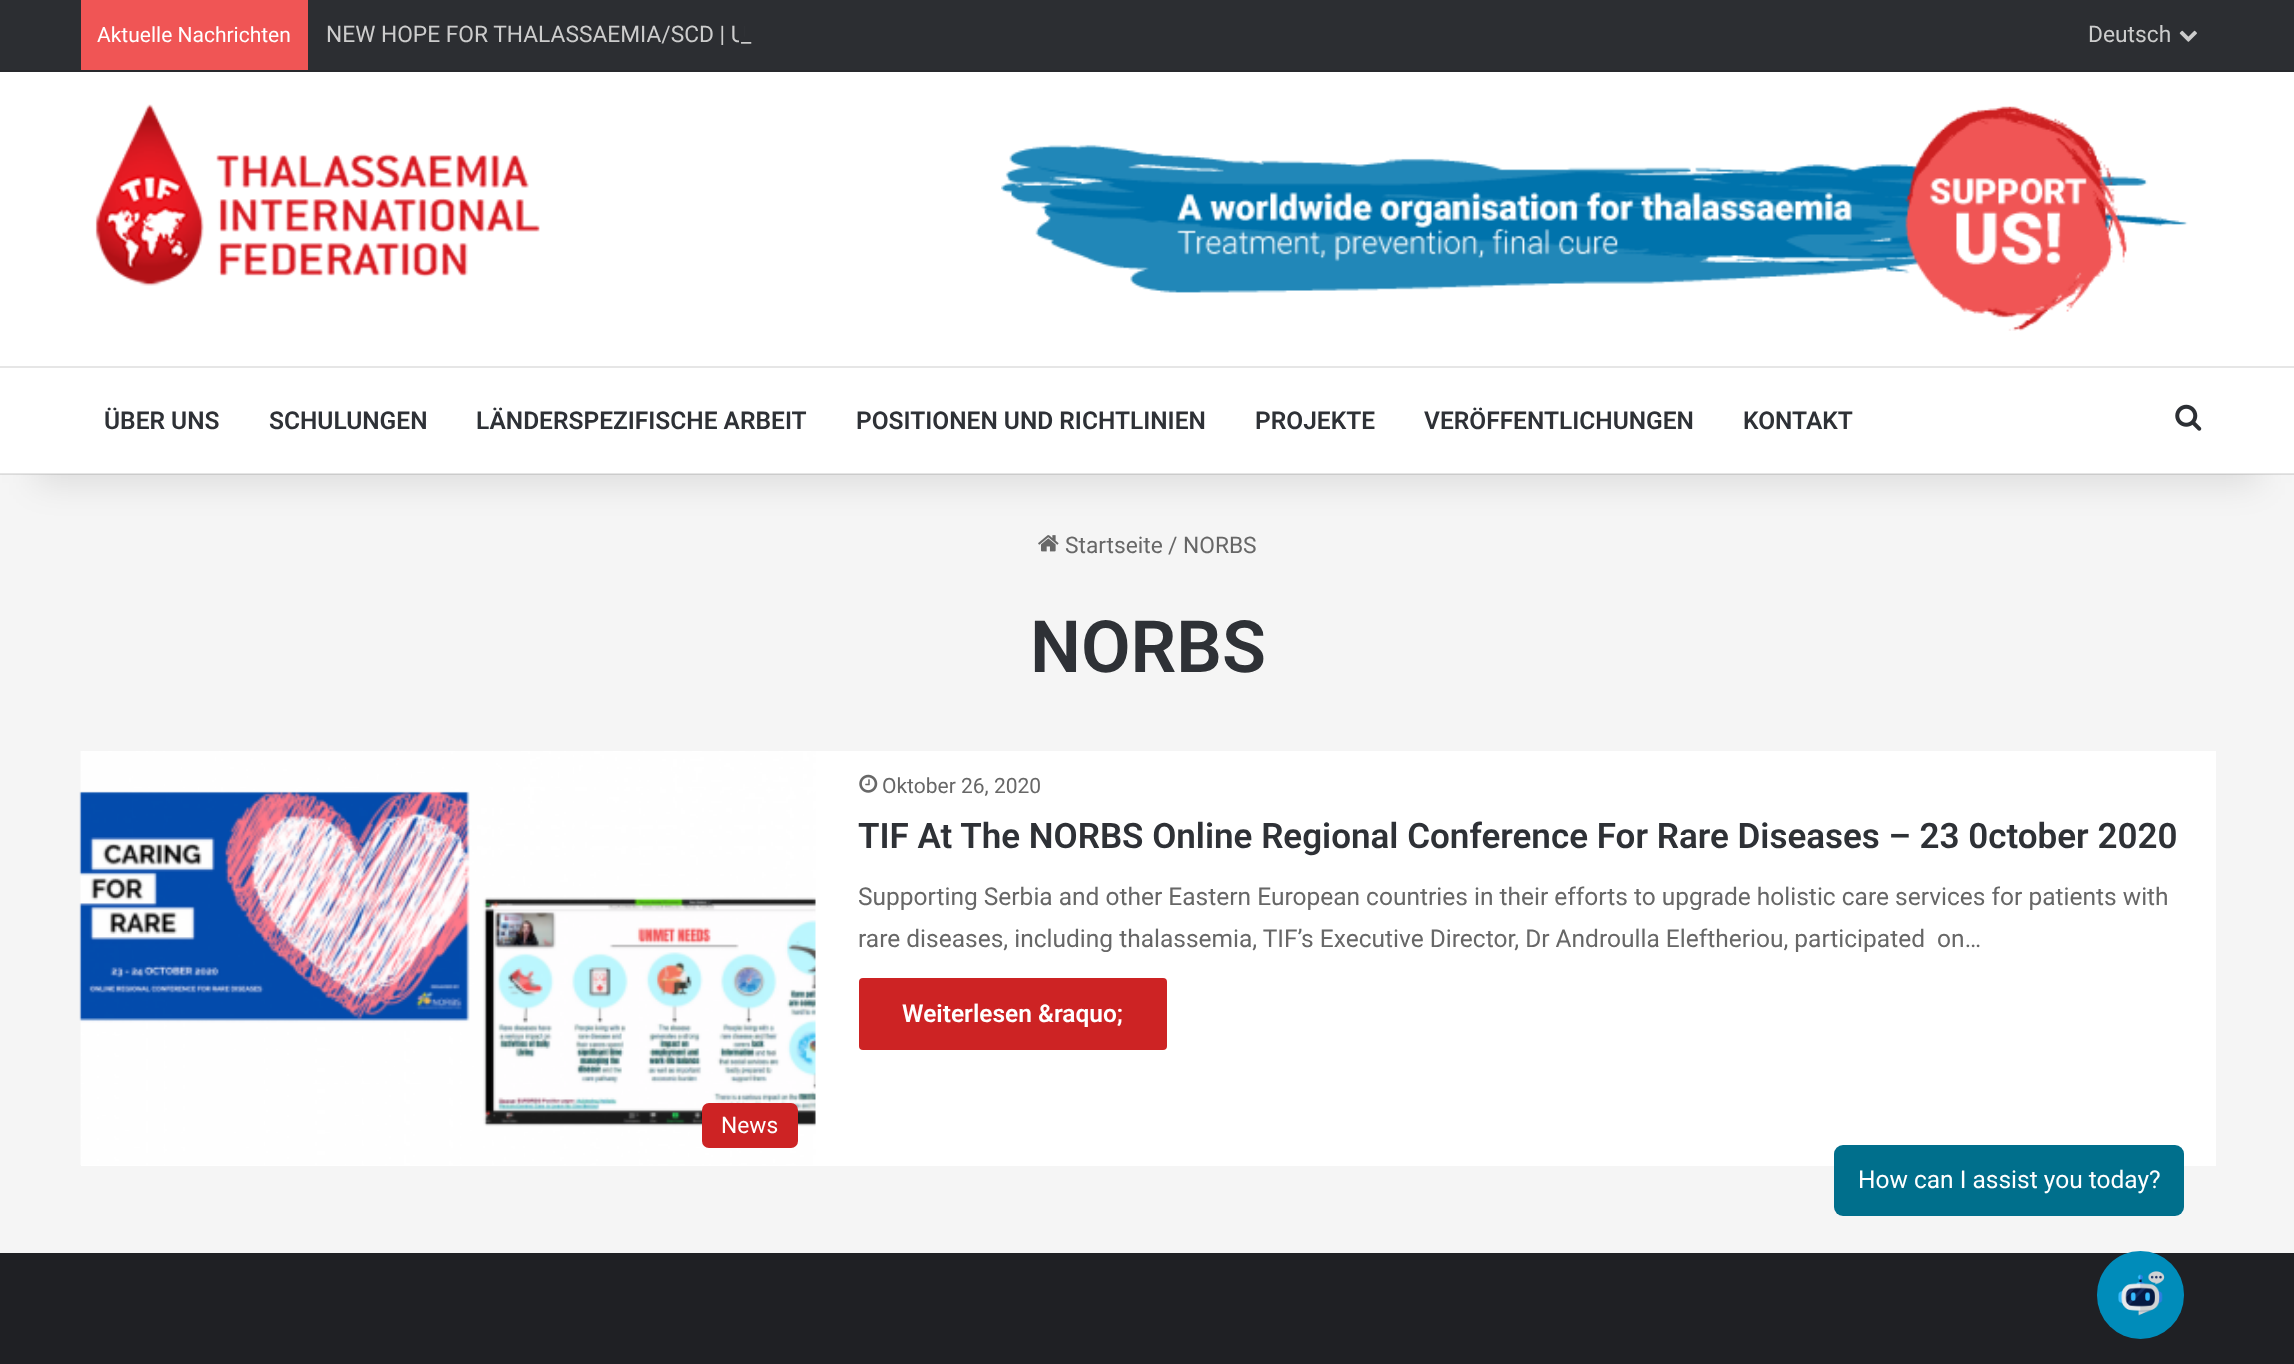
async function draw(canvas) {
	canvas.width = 2294;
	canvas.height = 1364;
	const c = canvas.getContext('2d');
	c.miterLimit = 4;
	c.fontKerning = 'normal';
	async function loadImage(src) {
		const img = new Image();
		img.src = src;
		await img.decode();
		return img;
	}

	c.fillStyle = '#f5f5f5';
	c.fillRect(0, 0, 2294, 1364);
	c.drawImage(await loadImage('img5.png'), 1038, 535, 21, 17);
	c.fillStyle = '#0000001a';
	c.filter = 'blur(17.5px)';
	c.beginPath();
	c.rect(35, 79, 2224, 404);
	c.fill();
	c.filter = 'none';
	for (const [x, y, w, h, color] of [
		[0, 72, 2294, 402, '#fff'],
		[0, 0, 2294, 70, '#2c2e32'],
		[0, 70, 2294, 2, '#28292d'],
		[81, 0, 227, 70, '#f05555'],
	]) {
		c.fillStyle = color;
		c.fillRect(x, y, w, h);
	}
	c.font = '21px Roboto';
	c.fillStyle = '#fff';
	c.fillText('Aktuelle Nachrichten', 97, 42);
	c.font = '22.75px Roboto';
	c.fillStyle = '#ccc';
	c.fillText('NEW HOPE FOR THALASSAEMIA/SCD | U', 326, 42);
	c.fillStyle = '#2c2e32';
	c.fillRect(739, 25, 5, 18);
	c.fillStyle = '#ccc';
	c.fillText('_', 741, 42);
	c.fillText('Deutsch', 2088, 42);
	c.drawImage(await loadImage('img1.png'), 2179, 30, 18, 12);
	c.drawImage(await loadImage('img2.png'), 95, 104, 445, 182);
	c.drawImage(await loadImage('img3.png'), 1001, 106, 1187, 225);
	c.fillStyle = '#e6e6e6';
	c.fillRect(0, 366, 2294, 2);
	c.fillStyle = '#0000001a';
	c.fillRect(0, 473, 2294, 2);
	c.font = '600 24.5px Roboto';
	c.fillStyle = '#2e3136';
	for (const [text, x, y] of [
		['ÜBER UNS', 104, 429],
		['SCHULUNGEN', 269, 429],
		['LÄNDERSPEZIFISCHE ARBEIT', 476, 429],
		['POSITIONEN UND RICHTLINIEN', 856, 429],
		['PROJEKTE', 1255, 429],
		['VERÖFFENTLICHUNGEN', 1424, 429],
		['KONTAKT', 1743, 429],
	]) {
		c.fillText(text, x, y);
	}
	c.drawImage(await loadImage('img4.png'), 2175, 404, 27, 27);
	c.font = '22.75px Roboto';
	c.fillStyle = '#676767';
	for (const [text, x, y] of [
		['Startseite', 1065, 553],
		['/', 1168, 553],
		['NORBS', 1183, 553],
	]) {
		c.fillText(text, x, y);
	}
	c.font = '600 72px Roboto';
	c.fillStyle = '#2e3136';
	c.fillText('NORBS', 1030, 672);
	c.fillStyle = '#fff';
	c.fillRect(81, 751, 2135, 415);
	c.drawImage(await loadImage('img6.png'), 859, 774, 19, 19);
	c.font = '21px Roboto';
	c.fillStyle = '#676767';
	c.fillText('Oktober 26, 2020', 882, 793);
	c.font = '600 35px Roboto';
	c.fillStyle = '#2e3136';
	c.fillText('TIF At The NORBS Online Regional Conference For Rare Diseases – 23 0ctober 2020', 858, 848);
	c.font = '24.5px Roboto';
	c.fillStyle = '#676767';
	c.fillText('Supporting Serbia and other Eastern European countries in their efforts to upgrade holistic care services for patients with', 858, 905);
	c.fillText('rare diseases, including thalassemia, TIF’s Executive Director, Dr Androulla Eleftheriou, participated  on…', 858, 947);
	c.fillStyle = '#cd2324';
	c.beginPath();
	c.roundRect(859, 978, 308, 72, 4);
	c.fill();
	c.font = '600 24.5px Roboto';
	c.fillStyle = '#fff';
	c.fillText('Weiterlesen &raquo;', 902, 1022);
	c.drawImage(await loadImage('img7.png'), 79, 751, 737, 414);
	c.fillStyle = '#cd2324';
	c.beginPath();
	c.roundRect(702, 1103, 96, 45, 7);
	c.fill();
	c.font = '22.75px Roboto';
	c.fillStyle = '#fff';
	c.fillText('News', 721, 1133);
	c.fillStyle = '#1f2024';
	c.fillRect(0, 1253, 2294, 111);
	c.fillStyle = '#008cba';
	c.beginPath();
	c.roundRect(2097, 1251, 87, 88, 43.5);
	c.fill();
	c.fillStyle = '#006f8c';
	c.beginPath();
	c.roundRect(1834, 1145, 350, 71, 9);
	c.fill();
	c.font = '24.5px Roboto';
	c.fillStyle = '#fff';
	c.fillText('How can I assist you today?', 1858, 1188);
	c.drawImage(await loadImage('img8.png'), 2118, 1271, 47, 45);
}

draw(document.querySelector('canvas'));
